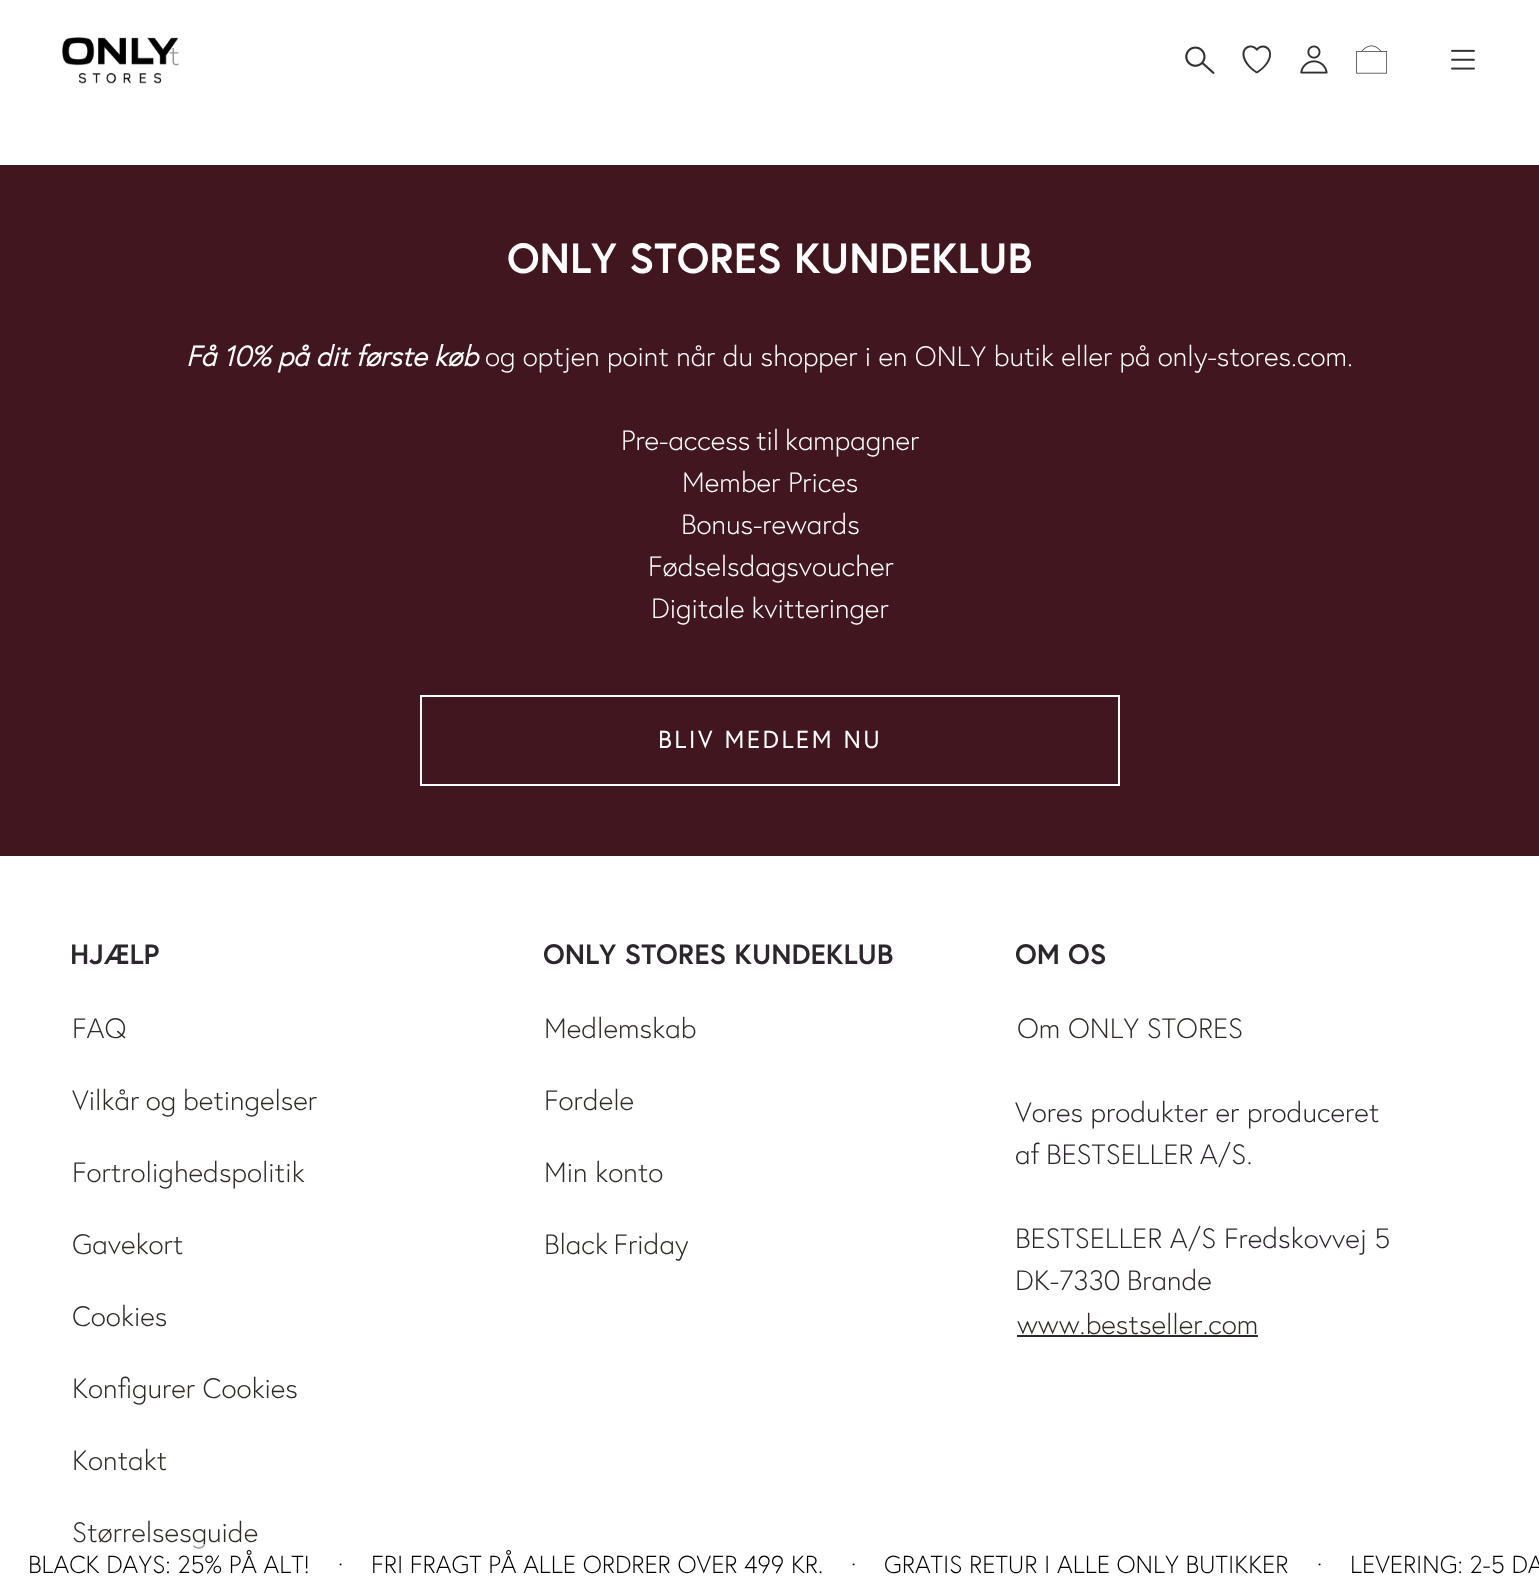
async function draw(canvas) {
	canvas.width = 1539;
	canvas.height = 1584;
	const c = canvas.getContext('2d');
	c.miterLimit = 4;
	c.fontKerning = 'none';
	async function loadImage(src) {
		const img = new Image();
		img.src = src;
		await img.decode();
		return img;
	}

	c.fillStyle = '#fff';
	c.fillRect(0, 0, 1539, 1584);
	c.font = '300 28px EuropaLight';
	c.fillStyle = '#2e2b27';
	c.fillText('t', 169, 65);
	c.fillStyle = '#41161f';
	c.fillRect(0, 165, 1539, 691);
	c.font = 'bold 42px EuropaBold';
	c.fillStyle = '#fff';
	c.fillText('ONLY STORES KUNDEKLUB', 507, 273);
	c.wordSpacing = '-0.5px';
	c.font = 'italic bold 28px EuropaLight';
	c.fillText('Få 10% på dit første køb', 186, 366);
	c.wordSpacing = '-0.25px';
	c.font = '300 28px EuropaLight';
	c.fillText('og optjen point når du shopper i en ONLY butik eller på only-stores.com.', 485, 366);
	c.wordSpacing = '-2px';
	c.fillText('Pre-access til kampagner', 621, 450);
	c.wordSpacing = '0px';
	for (const [text, x, y] of [
		['Member Prices', 682, 492],
		['Bonus-rewards', 681, 534],
		['Fødselsdagsvoucher', 648, 576],
	]) {
		c.fillText(text, x, y);
	}
	c.wordSpacing = '-1px';
	c.fillText('Digitale kvitteringer', 651, 618);
	c.strokeStyle = '#fff';
	c.lineWidth = 2;
	c.strokeRect(421, 696, 698, 89);
	c.letterSpacing = '2.5px';
	c.wordSpacing = '0px';
	c.font = '24.5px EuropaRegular';
	c.fillText('BLIV MEDLEM NU', 658, 748);
	c.letterSpacing = '0px';
	c.font = 'bold 28px EuropaBold';
	c.fillStyle = '#2c262d';
	c.fillText('HJÆLP', 70, 964);
	c.font = '300 28px EuropaLight';
	c.fillStyle = '#2e2b27';
	c.fillText('FAQ', 72, 1038);
	c.wordSpacing = '-1px';
	c.fillText('Vilkår og betingelser', 72, 1110);
	c.wordSpacing = '0px';
	for (const [text, x, y] of [
		['Fortrolighedspolitik', 72, 1182],
		['Gavekort', 72, 1254],
		['Cookies', 72, 1326],
		['Konfigurer Cookies', 72, 1398],
		['Kontakt', 72, 1470],
		['Størrelsesguide', 72, 1542],
	]) {
		c.fillText(text, x, y);
	}
	c.font = 'bold 28px EuropaBold';
	c.fillStyle = '#2c262d';
	c.fillText('ONLY STORES KUNDEKLUB', 543, 964);
	c.font = '300 28px EuropaLight';
	c.fillStyle = '#2e2b27';
	for (const [text, x, y] of [
		['Medlemskab', 544, 1038],
		['Fordele', 544, 1110],
		['Min konto', 544, 1182],
	]) {
		c.fillText(text, x, y);
	}
	c.wordSpacing = '-2px';
	c.fillText('Black Friday', 544, 1254);
	c.wordSpacing = '0px';
	c.font = 'bold 28px EuropaBold';
	c.fillStyle = '#2c262d';
	c.fillText('OM OS', 1015, 964);
	c.font = '300 28px EuropaLight';
	c.fillStyle = '#2e2b27';
	c.fillText('Om ONLY STORES', 1017, 1038);
	c.fillStyle = '#2c262d';
	c.fillText('Vores produkter er produceret', 1015, 1122);
	c.wordSpacing = '-1px';
	c.fillText('af BESTSELLER A/S.', 1015, 1164);
	c.wordSpacing = '0px';
	c.fillText('BESTSELLER A/S Fredskovvej 5', 1015, 1248);
	c.wordSpacing = '-1px';
	c.fillText('DK-7330 Brande', 1015, 1290);
	c.wordSpacing = '0px';
	c.fillStyle = '#2e2b27';
	c.fillText('www.bestseller.com', 1017, 1334);
	c.fillRect(1017, 1335, 241, 2);
	c.fillStyle = '#ffffff80';
	c.beginPath();
	c.roundRect(18, 18, 1505, 84, 9);
	c.fill();
	c.drawImage(await loadImage('img1.png'), 62, 37, 116, 47);
	c.drawImage(await loadImage('img2.png'), 1185, 46, 30, 28);
	c.drawImage(await loadImage('img3.png'), 1242, 45, 29, 29);
	c.drawImage(await loadImage('img4.png'), 1300, 45, 28, 29);
	c.drawImage(await loadImage('img5.png'), 1356, 45, 31, 29);
	c.drawImage(await loadImage('img6.png'), 1451, 49, 24, 21);
	c.fillRect(192, 1544, 13, 5);
	c.font = '300 24.5px EuropaLight';
	c.fillStyle = '#000';
	for (const [text, x, y] of [
		['BLACK DAYS: 25% PÅ ALT!', 28, 1573],
		['·', 338, 1573],
		['FRI FRAGT PÅ ALLE ORDRER OVER 499 KR.', 371, 1573],
		['·', 851, 1573],
		['GRATIS RETUR I ALLE ONLY BUTIKKER', 884, 1573],
		['·', 1317, 1573],
		['LEVERING: 2-5 DA', 1350, 1573],
	]) {
		c.fillText(text, x, y);
	}
}

draw(document.querySelector('canvas'));
